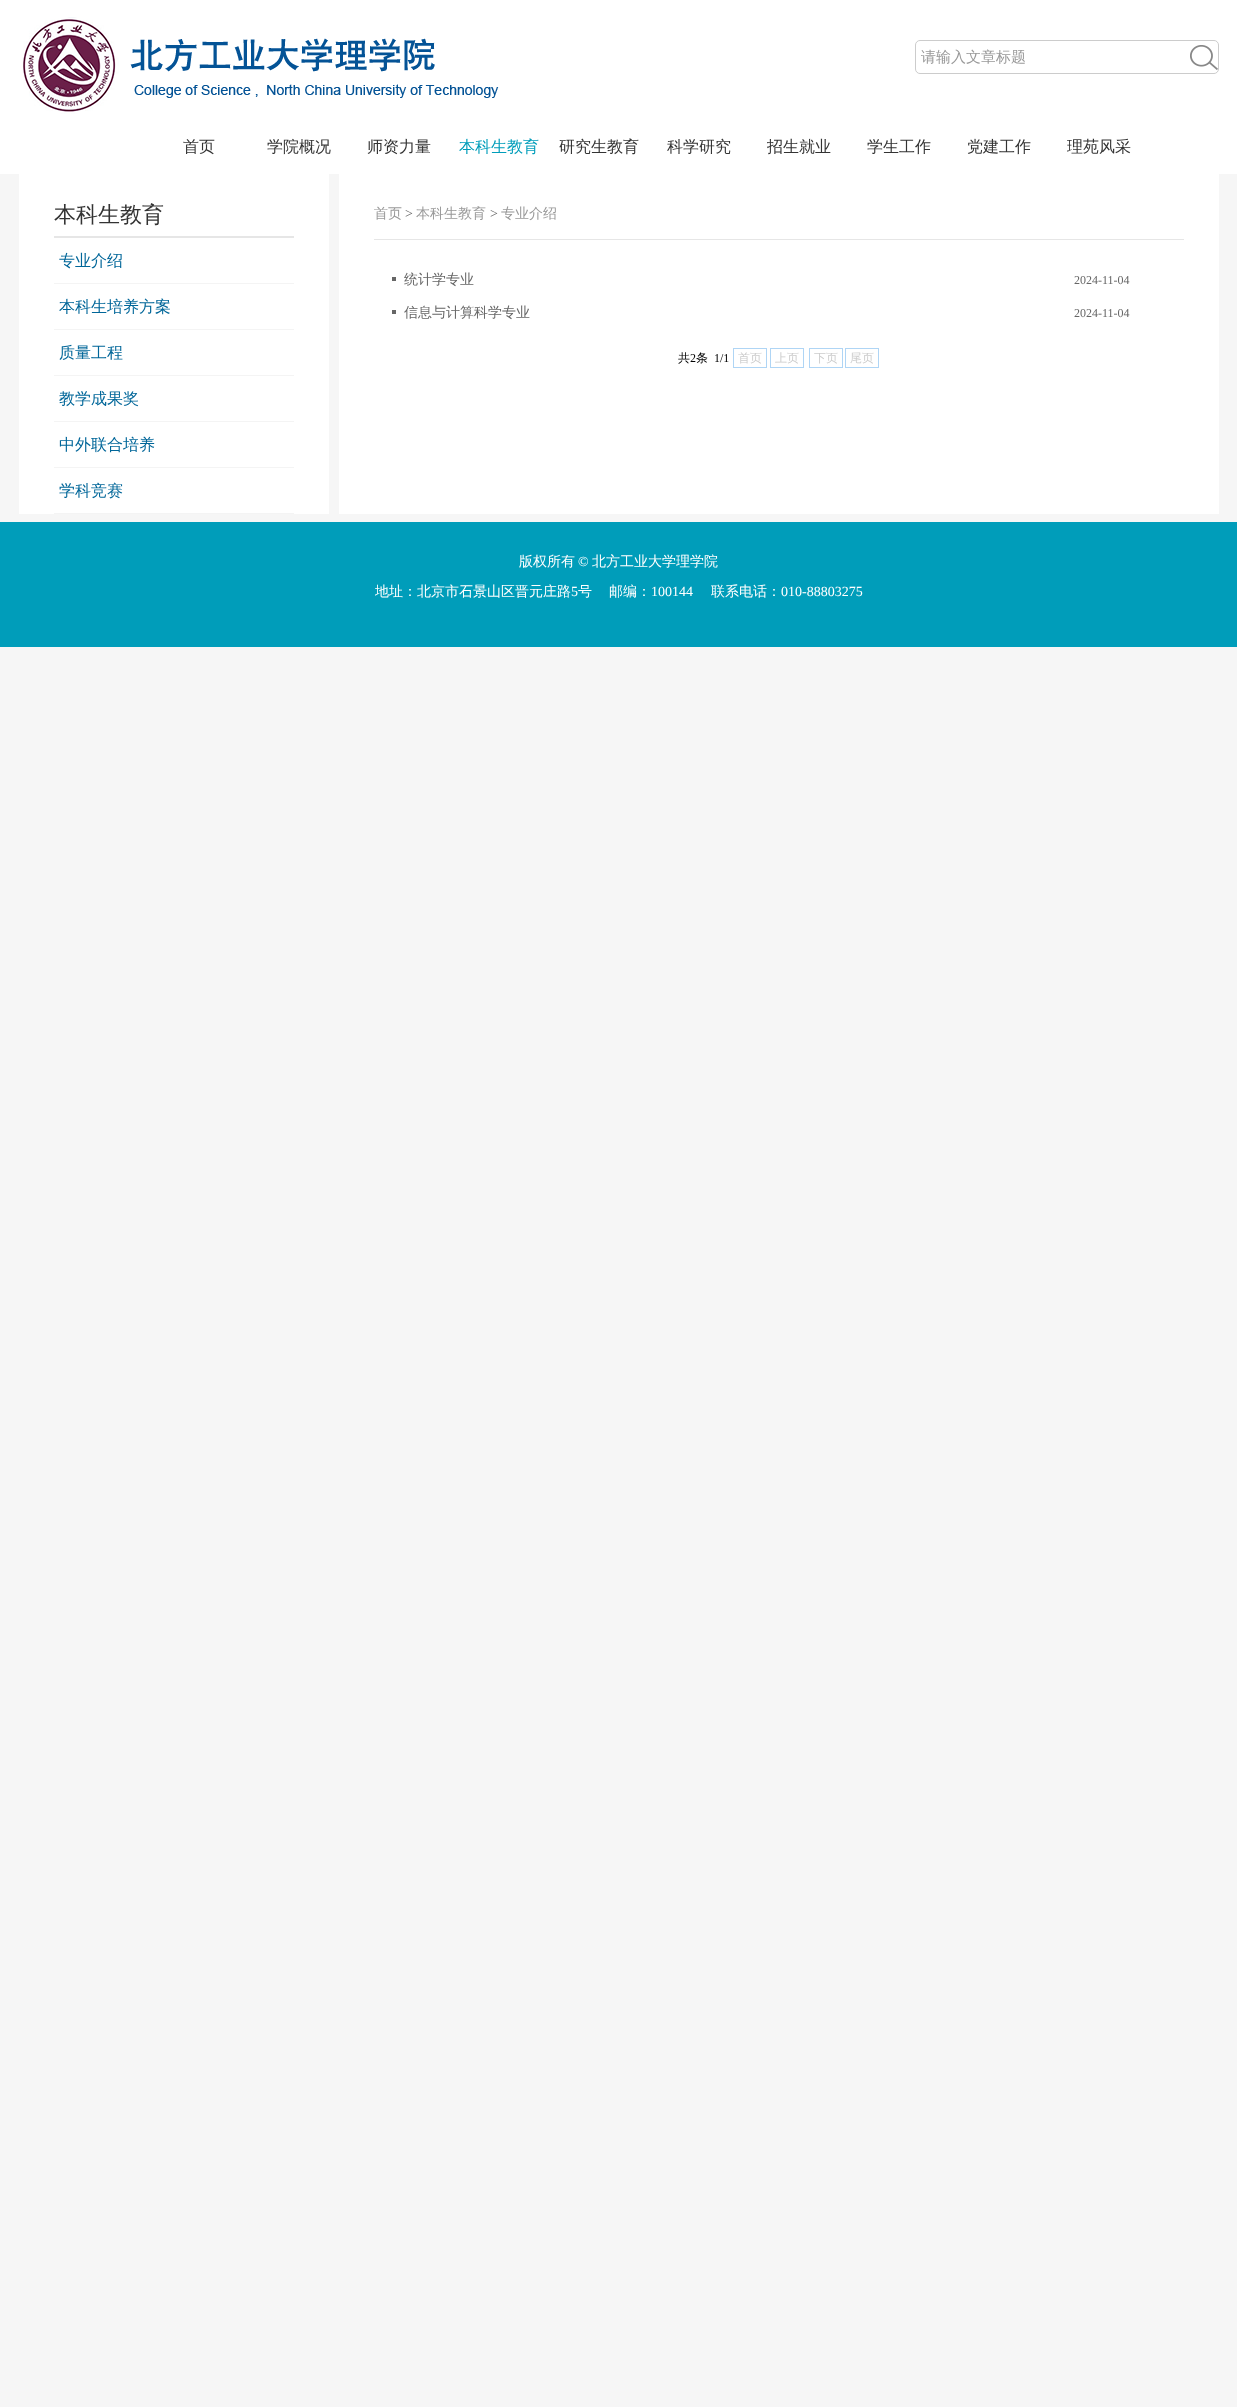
async function draw(canvas) {
	canvas.width = 1237;
	canvas.height = 2407;
	const c = canvas.getContext('2d');
	c.miterLimit = 4;
	c.fontKerning = 'normal';
	async function loadImage(src) {
		const img = new Image();
		img.src = src;
		await img.decode();
		return img;
	}

	c.fillStyle = '#f6f6f6';
	c.fillRect(0, 0, 1237, 2407);
	c.fillStyle = '#fff';
	c.fillRect(0, 0, 1237, 174);
	c.drawImage(await loadImage('img1.png'), 23, 17, 476, 97);
	c.beginPath();
	c.roundRect(915.5, 40.5, 303, 33, 4.5);
	c.strokeStyle = '#ccc';
	c.stroke();
	c.font = '500 15px WenQuanYi Zen Hei';
	c.fillStyle = '#999';
	c.fillText('请输入文章标题', 921, 62);
	c.drawImage(await loadImage('img2.png'), 1190, 45, 28, 25);
	c.font = '500 16px WenQuanYi Zen Hei';
	c.fillStyle = '#333';
	for (const [text, x, y] of [
		['首页', 183, 152],
		['学院概况', 267, 152],
		['师资力量', 367, 152],
	]) {
		c.fillText(text, x, y);
	}
	c.fillStyle = '#009dba';
	c.fillText('本科生教育', 459, 152);
	c.fillStyle = '#333';
	for (const [text, x, y] of [
		['研究生教育', 559, 152],
		['科学研究', 667, 152],
		['招生就业', 767, 152],
		['学生工作', 867, 152],
		['党建工作', 967, 152],
		['理苑风采', 1067, 152],
	]) {
		c.fillText(text, x, y);
	}
	c.fillStyle = '#fff';
	c.fillRect(19, 174, 310, 340);
	c.fillStyle = '#e6e6e6';
	c.fillRect(54, 236, 240, 2);
	c.font = '500 22px WenQuanYi Zen Hei';
	c.fillStyle = '#333';
	c.fillText('本科生教育', 54, 222);
	c.fillStyle = '#f4f4f4';
	c.fillRect(54, 283, 240, 1);
	c.font = '500 16px WenQuanYi Zen Hei';
	c.fillStyle = '#069';
	c.fillText('专业介绍', 59, 266);
	c.fillStyle = '#f4f4f4';
	c.fillRect(54, 329, 240, 1);
	c.fillStyle = '#069';
	c.fillText('本科生培养方案', 59, 312);
	c.fillStyle = '#f4f4f4';
	c.fillRect(54, 375, 240, 1);
	c.fillStyle = '#069';
	c.fillText('质量工程', 59, 358);
	c.fillStyle = '#f4f4f4';
	c.fillRect(54, 421, 240, 1);
	c.fillStyle = '#069';
	c.fillText('教学成果奖', 59, 404);
	c.fillStyle = '#f4f4f4';
	c.fillRect(54, 467, 240, 1);
	c.fillStyle = '#069';
	c.fillText('中外联合培养', 59, 450);
	c.fillStyle = '#f4f4f4';
	c.fillRect(54, 513, 240, 1);
	c.fillStyle = '#069';
	c.fillText('学科竞赛', 59, 496);
	c.fillStyle = '#fff';
	c.fillRect(339, 174, 880, 340);
	c.fillStyle = '#e6e6e6';
	c.fillRect(374, 239, 810, 1);
	c.font = '500 14px WenQuanYi Zen Hei';
	c.fillStyle = '#999';
	c.fillText('首页', 374, 218);
	c.font = '14px Liberation Serif';
	c.fillStyle = '#666';
	c.fillText('>', 405, 218);
	c.font = '500 14px WenQuanYi Zen Hei';
	c.fillStyle = '#999';
	c.fillText('本科生教育', 416, 218);
	c.font = '14px Liberation Serif';
	c.fillStyle = '#666';
	c.fillText('>', 490, 218);
	c.font = '500 14px WenQuanYi Zen Hei';
	c.fillStyle = '#999';
	c.fillText('专业介绍', 501, 218);
	c.fillStyle = '#666';
	c.fillRect(392, 277, 4, 4);
	c.fillText('统计学专业', 404, 284);
	c.font = '12px Liberation Serif';
	c.fillText('2024-11-04', 1074, 284);
	c.fillRect(392, 310, 4, 4);
	c.font = '500 14px WenQuanYi Zen Hei';
	c.fillText('信息与计算科学专业', 404, 317);
	c.font = '12px Liberation Serif';
	c.fillText('2024-11-04', 1074, 317);
	c.font = '500 12px WenQuanYi Zen Hei';
	c.fillStyle = '#000';
	c.fillText('共', 678, 362);
	c.font = '12px Liberation Serif';
	c.fillText('2', 690, 362);
	c.font = '500 12px WenQuanYi Zen Hei';
	c.fillText('条', 696, 362);
	c.font = '12px Liberation Serif';
	c.fillText('1/1', 714, 362);
	c.strokeStyle = '#afd5f5';
	c.strokeRect(733.5, 348.5, 33, 19);
	c.font = '500 12px WenQuanYi Zen Hei';
	c.fillStyle = '#ccc';
	c.fillText('首页', 738, 362);
	c.strokeRect(770.5, 348.5, 33, 19);
	c.fillText('上页', 775, 362);
	c.strokeRect(809.5, 348.5, 33, 19);
	c.fillText('下页', 814, 362);
	c.strokeRect(845.5, 348.5, 33, 19);
	c.fillText('尾页', 850, 362);
	c.fillStyle = '#009dba';
	c.fillRect(0, 522, 1237, 125);
	c.font = '500 14px WenQuanYi Zen Hei';
	c.fillStyle = '#fff';
	c.fillText('版权所有', 519, 566);
	c.font = '14px Liberation Serif';
	c.fillText('©', 578, 566);
	c.font = '500 14px WenQuanYi Zen Hei';
	c.fillText('北方工业大学理学院', 592, 566);
	c.fillText('地址：北京市石景山区晋元庄路', 375, 596);
	c.font = '14px Liberation Serif';
	c.fillText('5', 571, 596);
	c.font = '500 14px WenQuanYi Zen Hei';
	c.fillText('号', 578, 596);
	c.fillText('邮编：', 609, 596);
	c.font = '14px Liberation Serif';
	c.fillText('100144', 651, 596);
	c.font = '500 14px WenQuanYi Zen Hei';
	c.fillText('联系电话：', 711, 596);
	c.font = '14px Liberation Serif';
	c.fillText('010-88803275', 781, 596);
}

draw(document.querySelector('canvas'));
